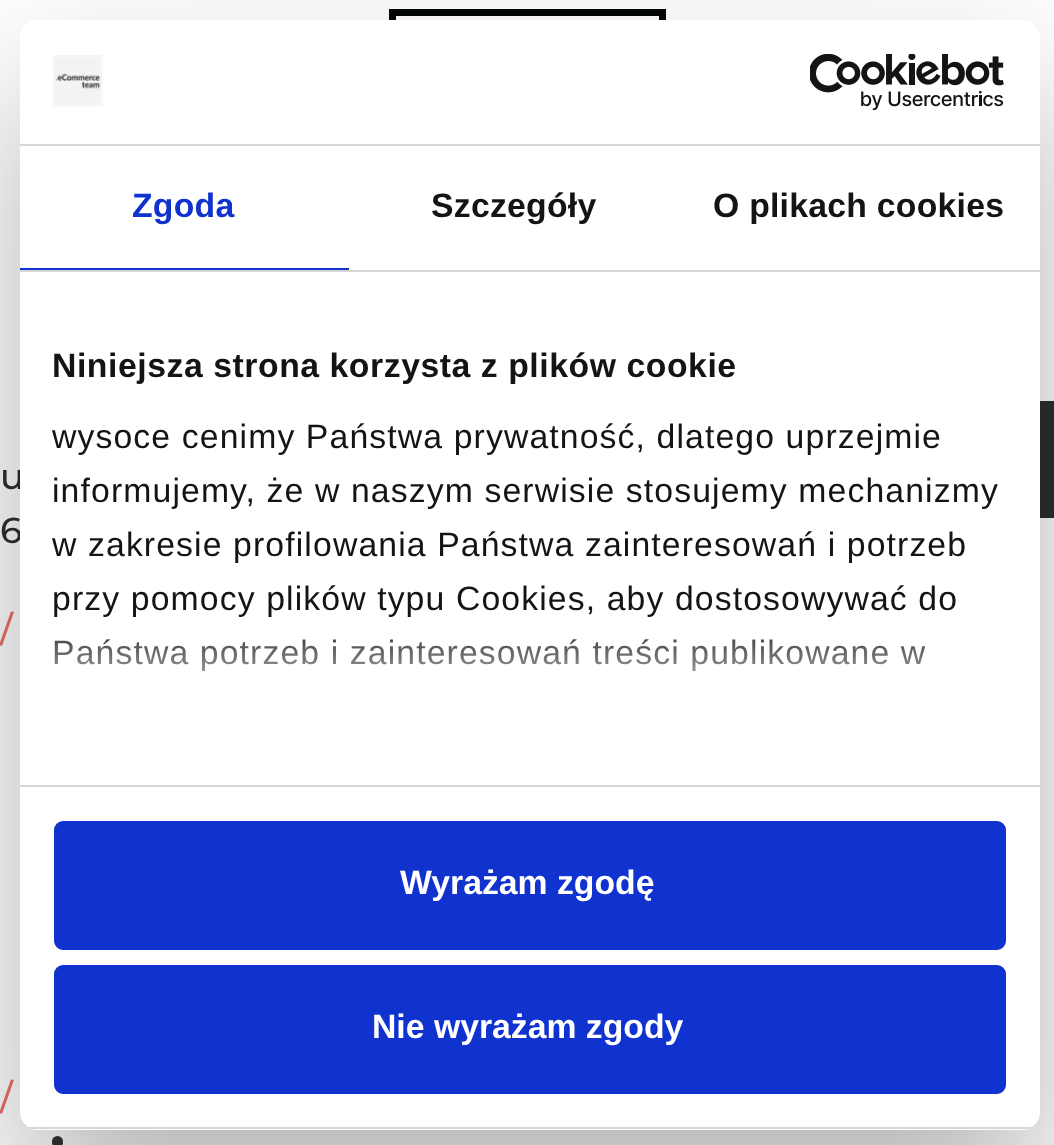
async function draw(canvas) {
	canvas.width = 1054;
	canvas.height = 1145;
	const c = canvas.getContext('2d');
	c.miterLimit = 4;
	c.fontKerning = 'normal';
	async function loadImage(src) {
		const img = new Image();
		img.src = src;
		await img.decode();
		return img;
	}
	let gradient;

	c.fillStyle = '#fff';
	c.fillRect(0, 0, 1054, 1145);
	c.strokeStyle = '#040707';
	c.lineWidth = 7;
	c.strokeRect(392.5, 12.5, 270, 115);
	c.font = '500 36px Montserrat';
	c.fillStyle = '#2c3030';
	c.fillText('u', 0, 489);
	c.fillText('6', 0, 543);
	c.fillStyle = '#ec6f66';
	c.fillText('/', 0, 642);
	c.fillText('/', 0, 1110);
	c.fillStyle = '#333';
	c.beginPath();
	c.roundRect(52, 1136, 11, 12, 5.5);
	c.fill();
	c.fillStyle = '#2c3030';
	c.fillRect(1040, 401, 14, 117);
	c.fillStyle = '#0000004d';
	c.filter = 'blur(76.5px)';
	c.beginPath();
	c.roundRect(20, 92, 1020, 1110, 18);
	c.fill();
	c.filter = 'none';
	c.fillStyle = '#fff';
	c.beginPath();
	c.roundRect(20, 20, 1020, 1110, 18);
	c.fill();
	c.fillStyle = '#d6d6d6';
	c.fillRect(20, 144, 1020, 2);
	c.drawImage(await loadImage('img1.png'), 53, 55, 50, 52);
	c.drawImage(await loadImage('img2.png'), 810, 54, 194, 56);
	c.fillRect(20, 270, 1020, 2);
	c.fillStyle = '#1032cf';
	c.fillRect(20, 268, 329, 2);
	c.letterSpacing = '0.25px';
	c.font = 'bold 33.75px Liberation Sans';
	c.fillText('Zgoda', 132, 217);
	c.fillStyle = '#141414';
	c.fillText('Szczegóły', 431, 217);
	c.fillText('O plikach cookies', 713, 217);
	c.fillStyle = '#d6d6d6';
	c.fillRect(20, 785, 1020, 2);
	c.letterSpacing = '0.55px';
	c.fillStyle = '#141414';
	c.fillText('Niniejsza strona korzysta z plików cookie', 52, 377);
	c.letterSpacing = '1.12px';
	c.font = '33.75px Liberation Sans';
	for (const [text, x, y] of [
		['wysoce cenimy Państwa prywatność, dlatego uprzejmie', 52, 448],
		['informujemy, że w naszym serwisie stosujemy mechanizmy', 52, 502],
		['w zakresie profilowania Państwa zainteresowań i potrzeb', 52, 556],
		['przy pomocy plików typu Cookies, aby dostosowywać do', 52, 610],
		['Państwa potrzeb i zainteresowań treści publikowane w', 52, 664],
	]) {
		c.fillText(text, x, y);
	}
	gradient = c.createLinearGradient(514, 784, 514, 615);
	gradient.addColorStop(0, '#fff');
	gradient.addColorStop(0.5, '#ffffffcc');
	gradient.addColorStop(1, '#ffffff00');
	c.fillStyle = gradient;
	c.fillRect(54, 639, 872, 32);
	c.save();
	c.beginPath();
	c.roundRect(20, 20, 1020, 1110, 18);
	c.clip();
	c.fillStyle = '#d6d6d6';
	c.fillRect(20, 1127, 1020, 2);
	c.restore();
	c.fillStyle = '#1032cf';
	c.beginPath();
	c.roundRect(56.5, 823.5, 947, 124, 6.5);
	c.fill();
	c.strokeStyle = '#1032cf';
	c.lineWidth = 5;
	c.stroke();
	c.letterSpacing = '0px';
	c.font = 'bold 33.75px Liberation Sans';
	c.fillStyle = '#fff';
	c.fillText('Wyrażam zgodę', 400, 894);
	c.fillStyle = '#1032cf';
	c.beginPath();
	c.roundRect(56.5, 967.5, 947, 124, 6.5);
	c.fill();
	c.stroke();
	c.fillStyle = '#fff';
	c.fillText('Nie wyrażam zgody', 372, 1038);
}

draw(document.querySelector('canvas'));
